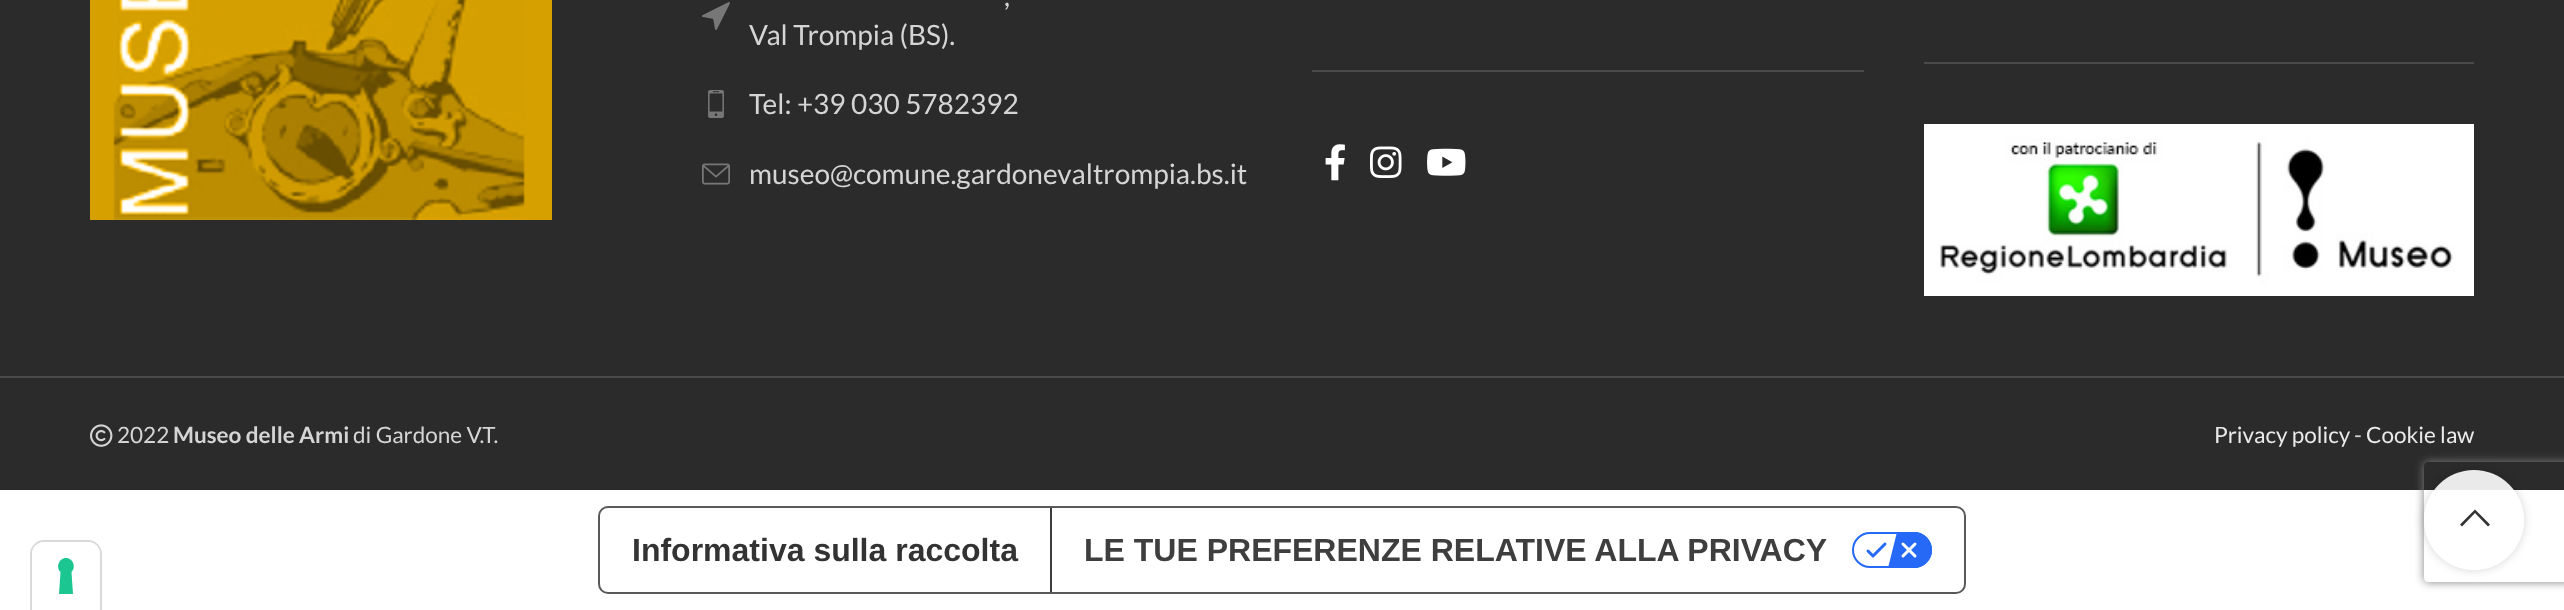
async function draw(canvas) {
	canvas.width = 2564;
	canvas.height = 610;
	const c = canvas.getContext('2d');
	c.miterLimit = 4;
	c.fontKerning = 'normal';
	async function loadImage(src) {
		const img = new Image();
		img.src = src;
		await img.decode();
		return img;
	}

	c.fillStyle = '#fff';
	c.fillRect(0, 0, 2564, 610);
	c.fillStyle = '#2b2b2b';
	c.fillRect(0, 0, 2564, 490);
	c.drawImage(await loadImage('img1.png'), 90, 0, 462, 220);
	c.drawImage(await loadImage('img2.png'), 702, 2, 28, 28);
	c.font = '28px Lato';
	c.fillStyle = '#d5d5d5';
	c.fillText(',', 1004, 6);
	c.fillText('Val Trompia (BS).', 749, 45);
	c.drawImage(await loadImage('img3.png'), 708, 90, 16, 28);
	c.fillText('Tel: +39 030 5782392', 749, 114);
	c.drawImage(await loadImage('img4.png'), 702, 163, 28, 22);
	c.fillText('museo@comune.gardonevaltrompia.bs.it', 749, 184);
	c.fillStyle = '#4b4b4b';
	c.fillRect(1312, 70, 552, 2);
	c.drawImage(await loadImage('img5.png'), 1325, 144, 20, 37);
	c.drawImage(await loadImage('img6.png'), 1370, 146, 32, 32);
	c.drawImage(await loadImage('img7.png'), 1427, 148, 39, 28);
	c.fillRect(1924, 62, 550, 2);
	c.drawImage(await loadImage('img8.png'), 1924, 124, 550, 172);
	c.fillRect(0, 376, 2564, 2);
	c.drawImage(await loadImage('img9.png'), 90, 424, 23, 23);
	c.font = '22.5px Lato';
	c.fillStyle = '#d5d5d5';
	c.fillText('2022', 117, 443);
	c.font = 'bold 22.5px Lato';
	c.fillText('Museo delle Armi', 173, 443);
	c.font = '22.5px Lato';
	c.fillText('di Gardone V.T.', 353, 443);
	c.fillStyle = '#eaeaea';
	c.fillText('Privacy policy', 2214, 443);
	c.fillStyle = '#d5d5d5';
	c.fillText('-', 2354, 443);
	c.fillStyle = '#eaeaea';
	c.fillText('Cookie law', 2366, 443);
	c.save();
	c.beginPath();
	c.moveTo(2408, 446);
	c.lineTo(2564, 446);
	c.lineTo(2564, 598);
	c.lineTo(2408, 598);
	c.closePath();
	c.moveTo(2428, 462);
	c.lineTo(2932, 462);
	c.bezierCurveTo(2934, 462, 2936, 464, 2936, 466);
	c.lineTo(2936, 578);
	c.bezierCurveTo(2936, 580, 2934, 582, 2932, 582);
	c.lineTo(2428, 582);
	c.bezierCurveTo(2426, 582, 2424, 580, 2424, 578);
	c.lineTo(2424, 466);
	c.bezierCurveTo(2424, 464, 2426, 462, 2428, 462);
	c.closePath();
	c.clip('evenodd');
	c.fillStyle = '#808080';
	c.filter = 'blur(5px)';
	c.beginPath();
	c.roundRect(2424, 462, 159, 120, 4);
	c.fill();
	c.filter = 'none';
	c.restore();
	c.beginPath();
	c.moveTo(44, 541);
	c.lineTo(88, 541);
	c.bezierCurveTo(95, 541, 101, 547, 101, 554);
	c.lineTo(101, 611);
	c.lineTo(31, 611);
	c.lineTo(31, 554);
	c.bezierCurveTo(31, 547, 37, 541, 44, 541);
	c.closePath();
	c.strokeStyle = '#d9d9d9';
	c.lineWidth = 2;
	c.stroke();
	c.fillStyle = '#fff';
	c.beginPath();
	c.roundRect(32, 542, 68, 68, [12, 12, 0, 0]);
	c.fill();
	c.fillStyle = '#1cc691';
	c.beginPath();
	c.moveTo(66, 558);
	c.bezierCurveTo(73, 558, 76.5, 567.5, 71.5, 572);
	c.lineTo(73, 594);
	c.lineTo(59, 594);
	c.lineTo(60.5, 572);
	c.bezierCurveTo(55.5, 567.5, 59, 558, 66, 558);
	c.closePath();
	c.fill('evenodd');
	c.beginPath();
	c.roundRect(599, 507, 1366, 86, 9);
	c.strokeStyle = '#595959';
	c.stroke();
	c.font = 'bold 32px Liberation Sans';
	c.fillStyle = '#333';
	c.fillText('Informativa sulla raccolta', 632, 561);
	c.fillStyle = '#3e3e3e';
	c.fillRect(1050, 508, 2, 84);
	c.fillText('LE TUE PREFERENZE RELATIVE ALLA PRIVACY', 1084, 561);
	c.drawImage(await loadImage('img10.png'), 1852, 532, 80, 36);
	c.save();
	c.beginPath();
	c.moveTo(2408, 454);
	c.lineTo(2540, 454);
	c.lineTo(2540, 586);
	c.lineTo(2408, 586);
	c.closePath();
	c.moveTo(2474, 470);
	c.bezierCurveTo(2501.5, 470, 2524, 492.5, 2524, 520);
	c.bezierCurveTo(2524, 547.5, 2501.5, 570, 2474, 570);
	c.bezierCurveTo(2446.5, 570, 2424, 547.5, 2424, 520);
	c.bezierCurveTo(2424, 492.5, 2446.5, 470, 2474, 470);
	c.closePath();
	c.clip('evenodd');
	c.fillStyle = '#0000002b';
	c.filter = 'blur(5px)';
	c.beginPath();
	c.roundRect(2424, 470, 100, 100, 50);
	c.fill();
	c.filter = 'none';
	c.restore();
	c.fillStyle = '#ffffffe6';
	c.beginPath();
	c.arc(2474, 520, 50, 0, 2 * Math.PI);
	c.fill();
	c.fillStyle = '#333';
	c.beginPath();
	c.moveTo(2488, 526.5);
	c.lineTo(2490, 524.5);
	c.lineTo(2475, 509.5);
	c.lineTo(2460, 524.5);
	c.lineTo(2462, 526.5);
	c.lineTo(2475, 513);
	c.closePath();
	c.fill();
}

draw(document.querySelector('canvas'));
